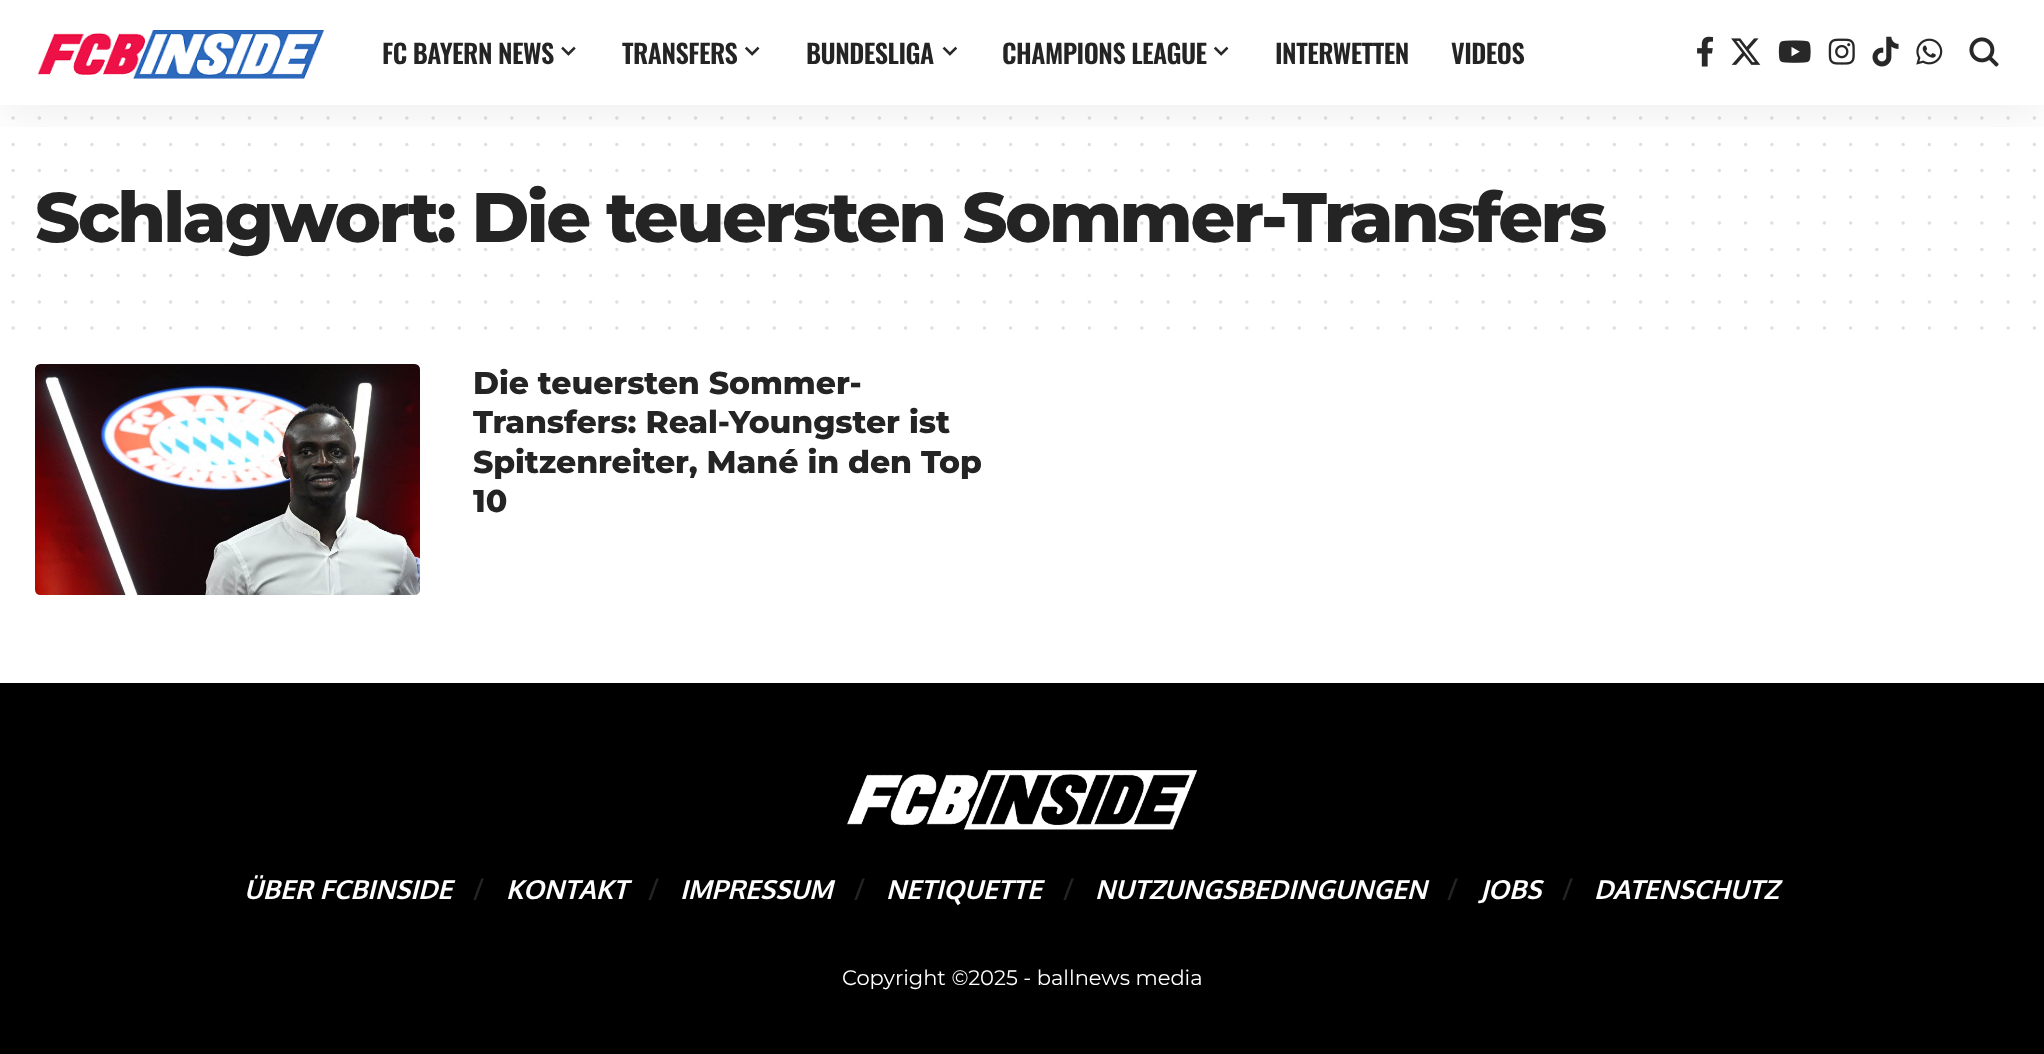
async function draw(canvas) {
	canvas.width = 2044;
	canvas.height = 1054;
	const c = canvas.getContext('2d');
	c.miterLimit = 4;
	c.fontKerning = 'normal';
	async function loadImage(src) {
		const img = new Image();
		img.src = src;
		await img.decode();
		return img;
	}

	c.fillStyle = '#fff';
	c.fillRect(0, 0, 2044, 1054);
	c.beginPath();
	c.moveTo(13.1, 118.1);
	c.lineTo(2034.7, 118.1);
	c.strokeStyle = '#dfdfdf';
	c.lineWidth = 3.5;
	c.lineCap = 'round';
	c.setLineDash([0, 26.25]);
	c.stroke();
	c.beginPath();
	c.moveTo(13.1, 144.4);
	c.lineTo(2034.7, 144.4);
	c.stroke();
	c.beginPath();
	c.moveTo(13.1, 170.6);
	c.lineTo(2034.7, 170.6);
	c.stroke();
	c.save();
	c.beginPath();
	c.rect(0, 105, 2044, 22);
	c.clip();
	c.fillStyle = '#00000012';
	c.filter = 'blur(26px)';
	c.beginPath();
	c.rect(0, 7, 2044, 105);
	c.fill();
	c.filter = 'none';
	c.restore();
	c.drawImage(await loadImage('img1.png'), 37, 29, 288, 50);
	c.letterSpacing = '-0.5px';
	c.font = '600 26.25px Oswald';
	c.fillStyle = '#242424';
	c.fillText('FC BAYERN NEWS', 382, 64);
	c.drawImage(await loadImage('img2.png'), 561, 46, 15, 10);
	c.fillText('TRANSFERS', 622, 64);
	c.drawImage(await loadImage('img3.png'), 744, 46, 16, 10);
	c.fillText('BUNDESLIGA', 806, 64);
	c.drawImage(await loadImage('img4.png'), 942, 46, 16, 10);
	c.fillText('CHAMPIONS LEAGUE', 1002, 64);
	c.drawImage(await loadImage('img3.png'), 1213, 46, 16, 10);
	c.fillText('INTERWETTEN', 1275, 64);
	c.fillText('VIDEOS', 1451, 64);
	c.drawImage(await loadImage('img5.png'), 1697, 36, 16, 31);
	c.drawImage(await loadImage('img6.png'), 1731, 38, 30, 27);
	c.drawImage(await loadImage('img7.png'), 1778, 40, 33, 23);
	c.drawImage(await loadImage('img8.png'), 1828, 38, 27, 27);
	c.drawImage(await loadImage('img9.png'), 1872, 36, 27, 31);
	c.drawImage(await loadImage('img10.png'), 1916, 38, 27, 27);
	c.drawImage(await loadImage('img11.png'), 1969, 37, 30, 30);
	c.letterSpacing = '-2.6px';
	c.font = '100 70px "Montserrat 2"';
	c.fillText('Schlagwort: Die teuersten Sommer-Transfers', 35, 242);
	c.beginPath();
	c.moveTo(13.1, 196.9);
	c.lineTo(2034.7, 196.9);
	c.strokeStyle = '#28282826';
	c.stroke();
	c.beginPath();
	c.moveTo(13.1, 223.1);
	c.lineTo(2034.7, 223.1);
	c.stroke();
	c.beginPath();
	c.moveTo(13.1, 249.4);
	c.lineTo(2034.7, 249.4);
	c.stroke();
	c.beginPath();
	c.moveTo(13.1, 275.6);
	c.lineTo(2034.7, 275.6);
	c.strokeStyle = '#dfdfdf';
	c.stroke();
	c.beginPath();
	c.moveTo(13.1, 301.9);
	c.lineTo(2034.7, 301.9);
	c.stroke();
	c.beginPath();
	c.moveTo(13.1, 328.1);
	c.lineTo(2034.7, 328.1);
	c.stroke();
	c.drawImage(await loadImage('img12.png'), 35, 364, 385, 231);
	c.letterSpacing = '-0.1px';
	c.font = '100 31.5px "Montserrat 2"';
	for (const [text, x, y] of [
		['Die teuersten Sommer-', 473, 394],
		['Transfers: Real-Youngster ist', 473, 433],
		['Spitzenreiter, Mané in den Top', 473, 473],
		['10', 473, 512],
	]) {
		c.fillText(text, x, y);
	}
	c.fillStyle = '#000';
	c.fillRect(0, 683, 2044, 371);
	c.drawImage(await loadImage('img13.png'), 847, 770, 350, 60);
	c.letterSpacing = '0px';
	c.font = 'italic bold 26.25px Oxygen';
	c.fillStyle = '#fff';
	c.fillText('ÜBER FCBINSIDE', 244, 899);
	c.font = '30px Noto Sans';
	c.fillStyle = '#242424';
	c.fillText('/', 473, 900);
	c.font = 'italic bold 26.25px Oxygen';
	c.fillStyle = '#fff';
	c.fillText('KONTAKT', 506, 899);
	c.font = '30px Noto Sans';
	c.fillStyle = '#242424';
	c.fillText('/', 648, 900);
	c.font = 'italic bold 26.25px Oxygen';
	c.fillStyle = '#fff';
	c.fillText('IMPRESSUM', 680, 899);
	c.font = '30px Noto Sans';
	c.fillStyle = '#242424';
	c.fillText('/', 854, 900);
	c.font = 'italic bold 26.25px Oxygen';
	c.fillStyle = '#fff';
	c.fillText('NETIQUETTE', 886, 899);
	c.font = '30px Noto Sans';
	c.fillStyle = '#242424';
	c.fillText('/', 1063, 900);
	c.font = 'italic bold 26.25px Oxygen';
	c.fillStyle = '#fff';
	c.fillText('NUTZUNGSBEDINGUNGEN', 1095, 899);
	c.font = '30px Noto Sans';
	c.fillStyle = '#242424';
	c.fillText('/', 1447, 900);
	c.font = 'italic bold 26.25px Oxygen';
	c.fillStyle = '#fff';
	c.fillText('JOBS', 1480, 899);
	c.font = '30px Noto Sans';
	c.fillStyle = '#242424';
	c.fillText('/', 1562, 900);
	c.font = 'italic bold 26.25px Oxygen';
	c.fillStyle = '#fff';
	c.fillText('DATENSCHUTZ', 1594, 899);
	c.font = '100 21px Montserrat';
	c.fillText('Copyright ©2025 - ballnews media', 842, 985);
}

draw(document.querySelector('canvas'));
